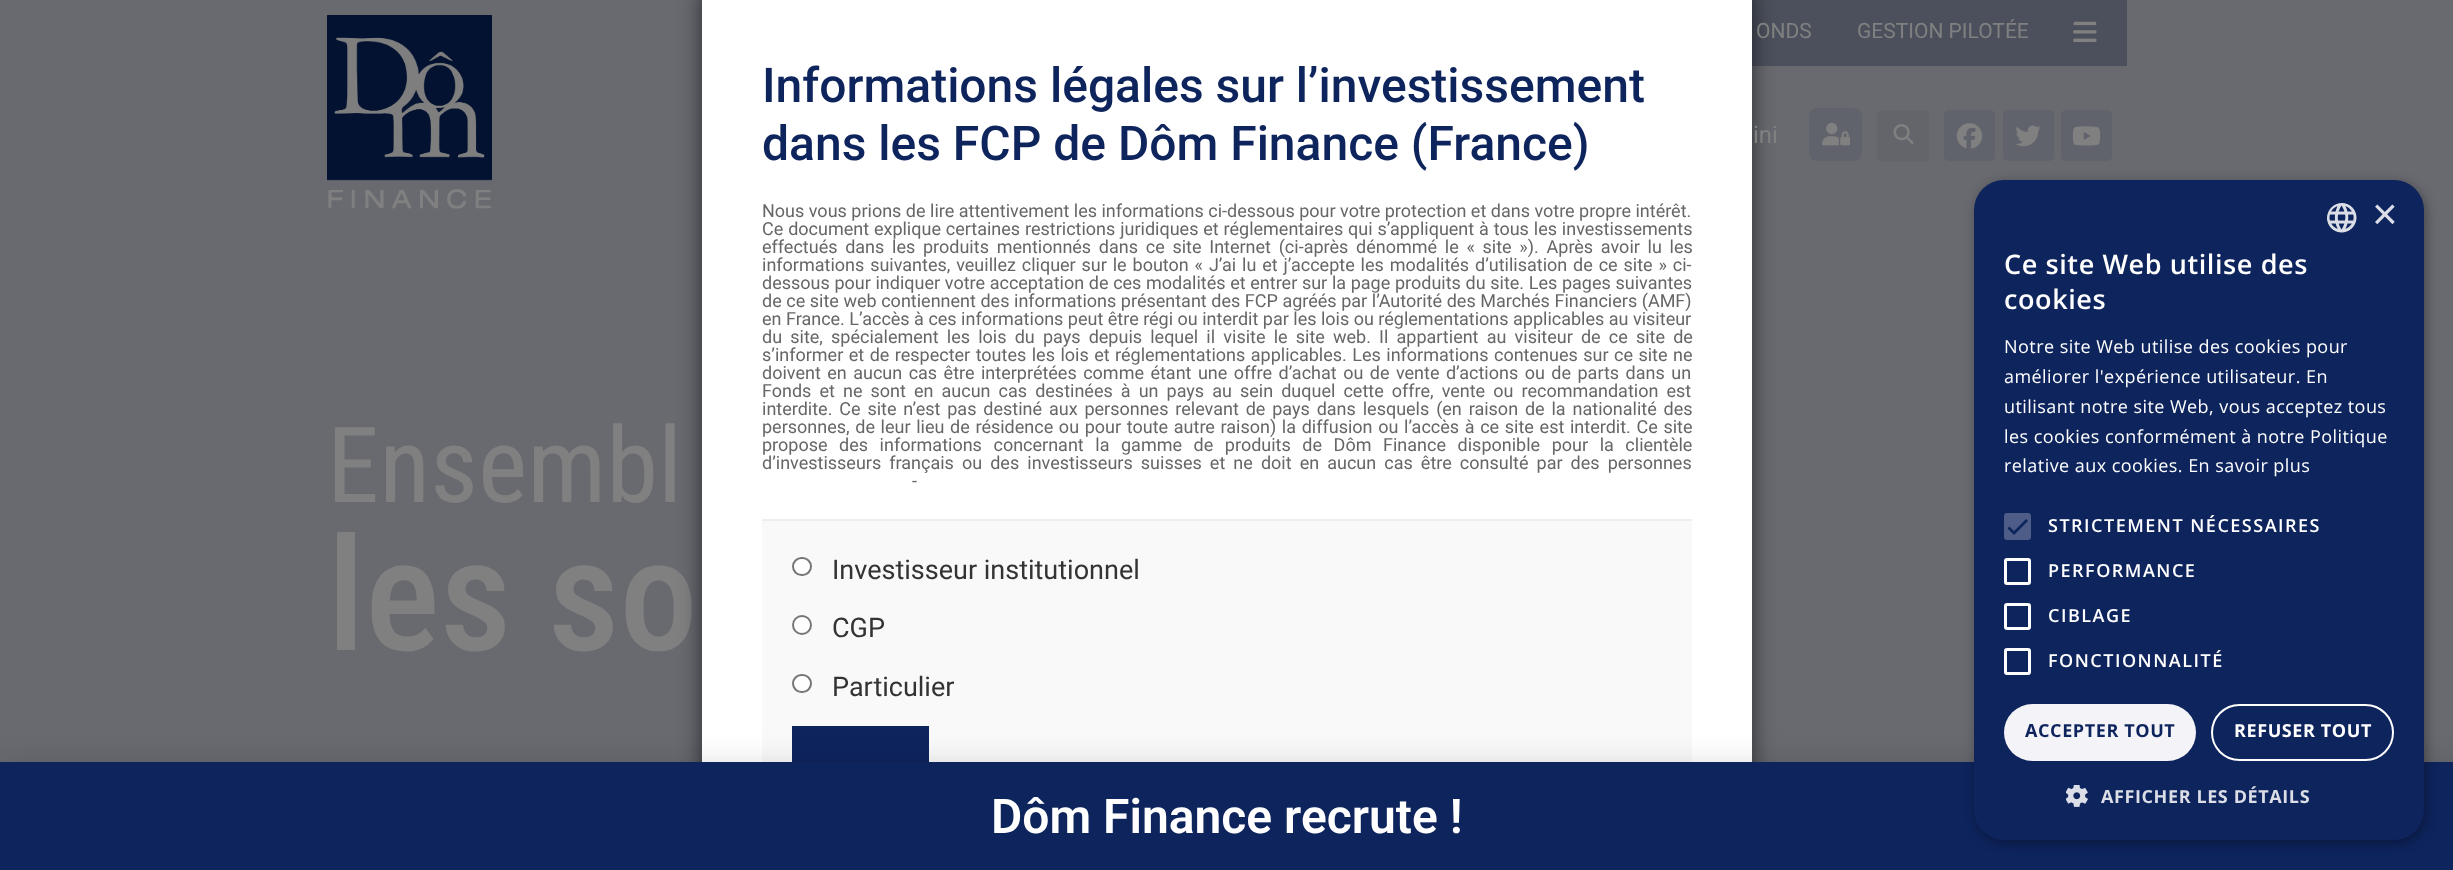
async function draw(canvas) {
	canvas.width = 2453;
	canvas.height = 870;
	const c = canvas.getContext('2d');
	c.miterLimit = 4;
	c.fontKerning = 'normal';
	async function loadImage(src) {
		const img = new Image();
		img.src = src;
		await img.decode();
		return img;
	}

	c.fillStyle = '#686a70';
	c.fillRect(0, 0, 2453, 870);
	c.font = '105px Roboto Condensed';
	c.fillStyle = '#808080';
	c.fillText('Ensembl', 327, 502);
	c.font = '500 157.5px Roboto Condensed';
	c.fillText('les so', 327, 650);
	c.fillStyle = '#4b505c';
	c.fillRect(1752, 0, 375, 66);
	c.fillStyle = '#00000099';
	c.filter = 'blur(11px)';
	c.beginPath();
	c.roundRect(702, -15, 1050, 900, 15);
	c.fill();
	c.filter = 'none';
	c.fillStyle = '#fff';
	c.fillRect(702, 0, 1050, 762);
	c.font = '500 48px Roboto';
	c.fillStyle = '#0e245d';
	c.fillText('Informations légales sur l’investissement', 762, 102);
	c.fillText('dans les FCP de Dôm Finance (France)', 762, 160);
	c.font = '18px Roboto';
	c.fillStyle = '#666';
	c.fillText('Nous vous prions de lire attentivement les informations ci-dessous pour votre protection et dans votre propre intérêt.', 762, 217);
	c.wordSpacing = '0.4px';
	c.fillText('Ce document explique certaines restrictions juridiques et réglementaires qui s’appliquent à tous les investissements', 762, 235);
	c.wordSpacing = '3.25px';
	c.fillText('effectués dans les produits mentionnés dans ce site Internet (ci-après dénommé le « site »). Après avoir lu les', 762, 253);
	c.wordSpacing = '1.4px';
	c.fillText('informations suivantes, veuillez cliquer sur le bouton « J’ai lu et j’accepte les modalités d’utilisation de ce site » ci-', 762, 271);
	c.wordSpacing = '0.2px';
	c.fillText('dessous pour indiquer votre acceptation de ces modalités et entrer sur la page produits du site. Les pages suivantes', 762, 289);
	c.wordSpacing = '0.1px';
	c.fillText('de ce site web contiennent des informations présentant des FCP agréés par l’Autorité des Marchés Financiers (AMF)', 762, 307);
	c.wordSpacing = '0px';
	c.fillText('en France. L’accès à ces informations peut être régi ou interdit par les lois ou réglementations applicables au visiteur', 762, 325);
	c.wordSpacing = '3.7px';
	c.fillText('du site, spécialement les lois du pays depuis lequel il visite le site web. Il appartient au visiteur de ce site de', 762, 343);
	c.wordSpacing = '1px';
	c.fillText('s’informer et de respecter toutes les lois et réglementations applicables. Les informations contenues sur ce site ne', 762, 361);
	c.wordSpacing = '2px';
	c.fillText('doivent en aucun cas être interprétées comme étant une offre d’achat ou de vente d’actions ou de parts dans un', 762, 379);
	c.wordSpacing = '3.6px';
	c.fillText('Fonds et ne sont en aucun cas destinées à un pays au sein duquel cette offre, vente ou recommandation est', 762, 397);
	c.wordSpacing = '2.4px';
	c.fillText('interdite. Ce site n’est pas destiné aux personnes relevant de pays dans lesquels (en raison de la nationalité des', 762, 415);
	c.wordSpacing = '1.2px';
	c.fillText('personnes, de leur lieu de résidence ou pour toute autre raison) la diffusion ou l’accès à ce site est interdit. Ce site', 762, 433);
	c.wordSpacing = '7.1px';
	c.fillText('propose des informations concernant la gamme de produits de Dôm Finance disponible pour la clientèle', 762, 451);
	c.wordSpacing = '3.6px';
	c.fillText('d’investisseurs français ou des investisseurs suisses et ne doit en aucun cas être consulté par des personnes', 762, 469);
	c.wordSpacing = '3px';
	c.fillText('-', 912, 487);
	c.fillStyle = '#f9f9f9';
	c.fillRect(762, 521, 930, 241);
	c.fillStyle = '#eee';
	c.fillRect(762, 519, 930, 2);
	c.fillStyle = '#fff';
	c.beginPath();
	c.roundRect(793, 558, 18, 17, 8.5);
	c.fill();
	c.strokeStyle = '#767676';
	c.lineWidth = 2;
	c.stroke();
	c.wordSpacing = '0px';
	c.font = '27px Roboto';
	c.fillStyle = '#333';
	c.fillText('Investisseur institutionnel', 832, 579);
	c.fillStyle = '#fff';
	c.beginPath();
	c.arc(802, 625, 9, 0, 2 * Math.PI);
	c.fill();
	c.stroke();
	c.fillStyle = '#333';
	c.fillText('CGP', 832, 637);
	c.fillStyle = '#fff';
	c.beginPath();
	c.roundRect(793, 675, 18, 17, 8.5);
	c.fill();
	c.stroke();
	c.fillStyle = '#333';
	c.fillText('Particulier', 832, 696);
	c.fillStyle = '#0e245d';
	c.fillRect(792, 726, 137, 36);
	c.drawImage(await loadImage('img1.png'), 327, 15, 165, 194);
	c.font = '21px Roboto';
	c.fillStyle = '#808080';
	c.fillText('ONDS', 1756, 38);
	c.fillText('GESTION PILOTÉE', 1857, 38);
	c.drawImage(await loadImage('img2.png'), 2073, 21, 24, 21);
	c.font = '24px Roboto';
	c.fillText('ini', 1753, 143);
	c.fillStyle = '#60636b';
	c.beginPath();
	c.roundRect(1809, 108, 53, 53, 8);
	c.fill();
	c.drawImage(await loadImage('img3.png'), 1822, 122, 28, 24);
	c.fillStyle = '#63656a';
	c.beginPath();
	c.roundRect(1877, 110, 52, 52, 5);
	c.fill();
	c.drawImage(await loadImage('img4.png'), 1893, 124, 21, 20);
	c.fillStyle = '#60636b';
	c.beginPath();
	c.roundRect(1944, 110, 51, 51, 5);
	c.fill();
	c.drawImage(await loadImage('img5.png'), 1956, 123, 27, 26);
	c.beginPath();
	c.roundRect(2003, 110, 51, 51, 5);
	c.fill();
	c.drawImage(await loadImage('img6.png'), 2015, 125, 26, 22);
	c.beginPath();
	c.roundRect(2061, 110, 51, 51, 5);
	c.fill();
	c.drawImage(await loadImage('img7.png'), 2072, 126, 29, 20);
	c.fillStyle = '#00000033';
	c.filter = 'blur(17px)';
	c.beginPath();
	c.rect(-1, 770, 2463, 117);
	c.fill();
	c.filter = 'none';
	c.fillStyle = '#0e245d';
	c.fillRect(0, 762, 2453, 108);
	c.fillStyle = '#00000059';
	c.filter = 'blur(6px)';
	c.beginPath();
	c.roundRect(1976, 183, 450, 660, 30);
	c.fill();
	c.filter = 'none';
	c.fillStyle = '#0e245d';
	c.beginPath();
	c.roundRect(1974, 180, 450, 660, 30);
	c.fill();
	c.drawImage(await loadImage('img8.png'), 2327, 203, 30, 30);
	c.font = '44px Liberation Sans';
	c.fillStyle = '#dbdee7';
	c.fillText('×', 2372, 229);
	c.letterSpacing = '0.6px';
	c.font = '600 27px Open Sans';
	c.fillStyle = '#fff';
	c.fillText('Ce site Web utilise des', 2004, 274);
	c.fillText('cookies', 2004, 309);
	c.letterSpacing = '0.45px';
	c.font = '18px Open Sans';
	for (const [text, x, y] of [
		['Notre site Web utilise des cookies pour', 2004, 353],
		['améliorer l\'expérience utilisateur. En', 2004, 383],
		['utilisant notre site Web, vous acceptez tous', 2004, 413],
		['les cookies conformément à notre Politique', 2004, 443],
		['relative aux cookies. En savoir plus', 2004, 472],
	]) {
		c.fillText(text, x, y);
	}
	c.fillStyle = '#4d5d87';
	c.beginPath();
	c.roundRect(2004, 513, 27, 27, 3);
	c.fill();
	c.beginPath();
	c.moveTo(2008.5, 527.5);
	c.lineTo(2014, 533);
	c.lineTo(2027, 520);
	c.strokeStyle = '#0e245d';
	c.lineWidth = 2.7;
	c.stroke();
	c.letterSpacing = '1.5px';
	c.font = '600 18px Open Sans';
	c.fillStyle = '#fff';
	c.fillText('STRICTEMENT NÉCESSAIRES', 2048, 532);
	c.beginPath();
	c.roundRect(2005.5, 559.5, 24, 24, 1.5);
	c.strokeStyle = '#fff';
	c.lineWidth = 3;
	c.stroke();
	c.fillText('PERFORMANCE', 2048, 577);
	c.beginPath();
	c.roundRect(2005.5, 604.5, 24, 24, 1.5);
	c.stroke();
	c.fillText('CIBLAGE', 2048, 622);
	c.beginPath();
	c.roundRect(2005.5, 649.5, 24, 24, 1.5);
	c.stroke();
	c.fillText('FONCTIONNALITÉ', 2048, 667);
	c.fillStyle = '#f4f3f8';
	c.beginPath();
	c.roundRect(2004, 704, 192, 57, 28.5);
	c.fill();
	c.letterSpacing = '0.6px';
	c.font = 'bold 18px Open Sans';
	c.fillStyle = '#0e245d';
	c.fillText('ACCEPTER TOUT', 2025, 737);
	c.beginPath();
	c.roundRect(2212, 705, 181, 55, 27.5);
	c.lineWidth = 2;
	c.stroke();
	c.fillStyle = '#fff';
	c.fillText('REFUSER TOUT', 2234, 737);
	c.drawImage(await loadImage('img9.png'), 2066, 785, 22, 22);
	c.fillStyle = '#dbdee7';
	c.fillText('AFFICHER LES DÉTAILS', 2101, 803);
	c.letterSpacing = '0px';
	c.font = '600 48px Roboto';
	c.fillStyle = '#fff';
	c.fillText('Dôm Finance recrute !', 991, 833);
}

draw(document.querySelector('canvas'));
